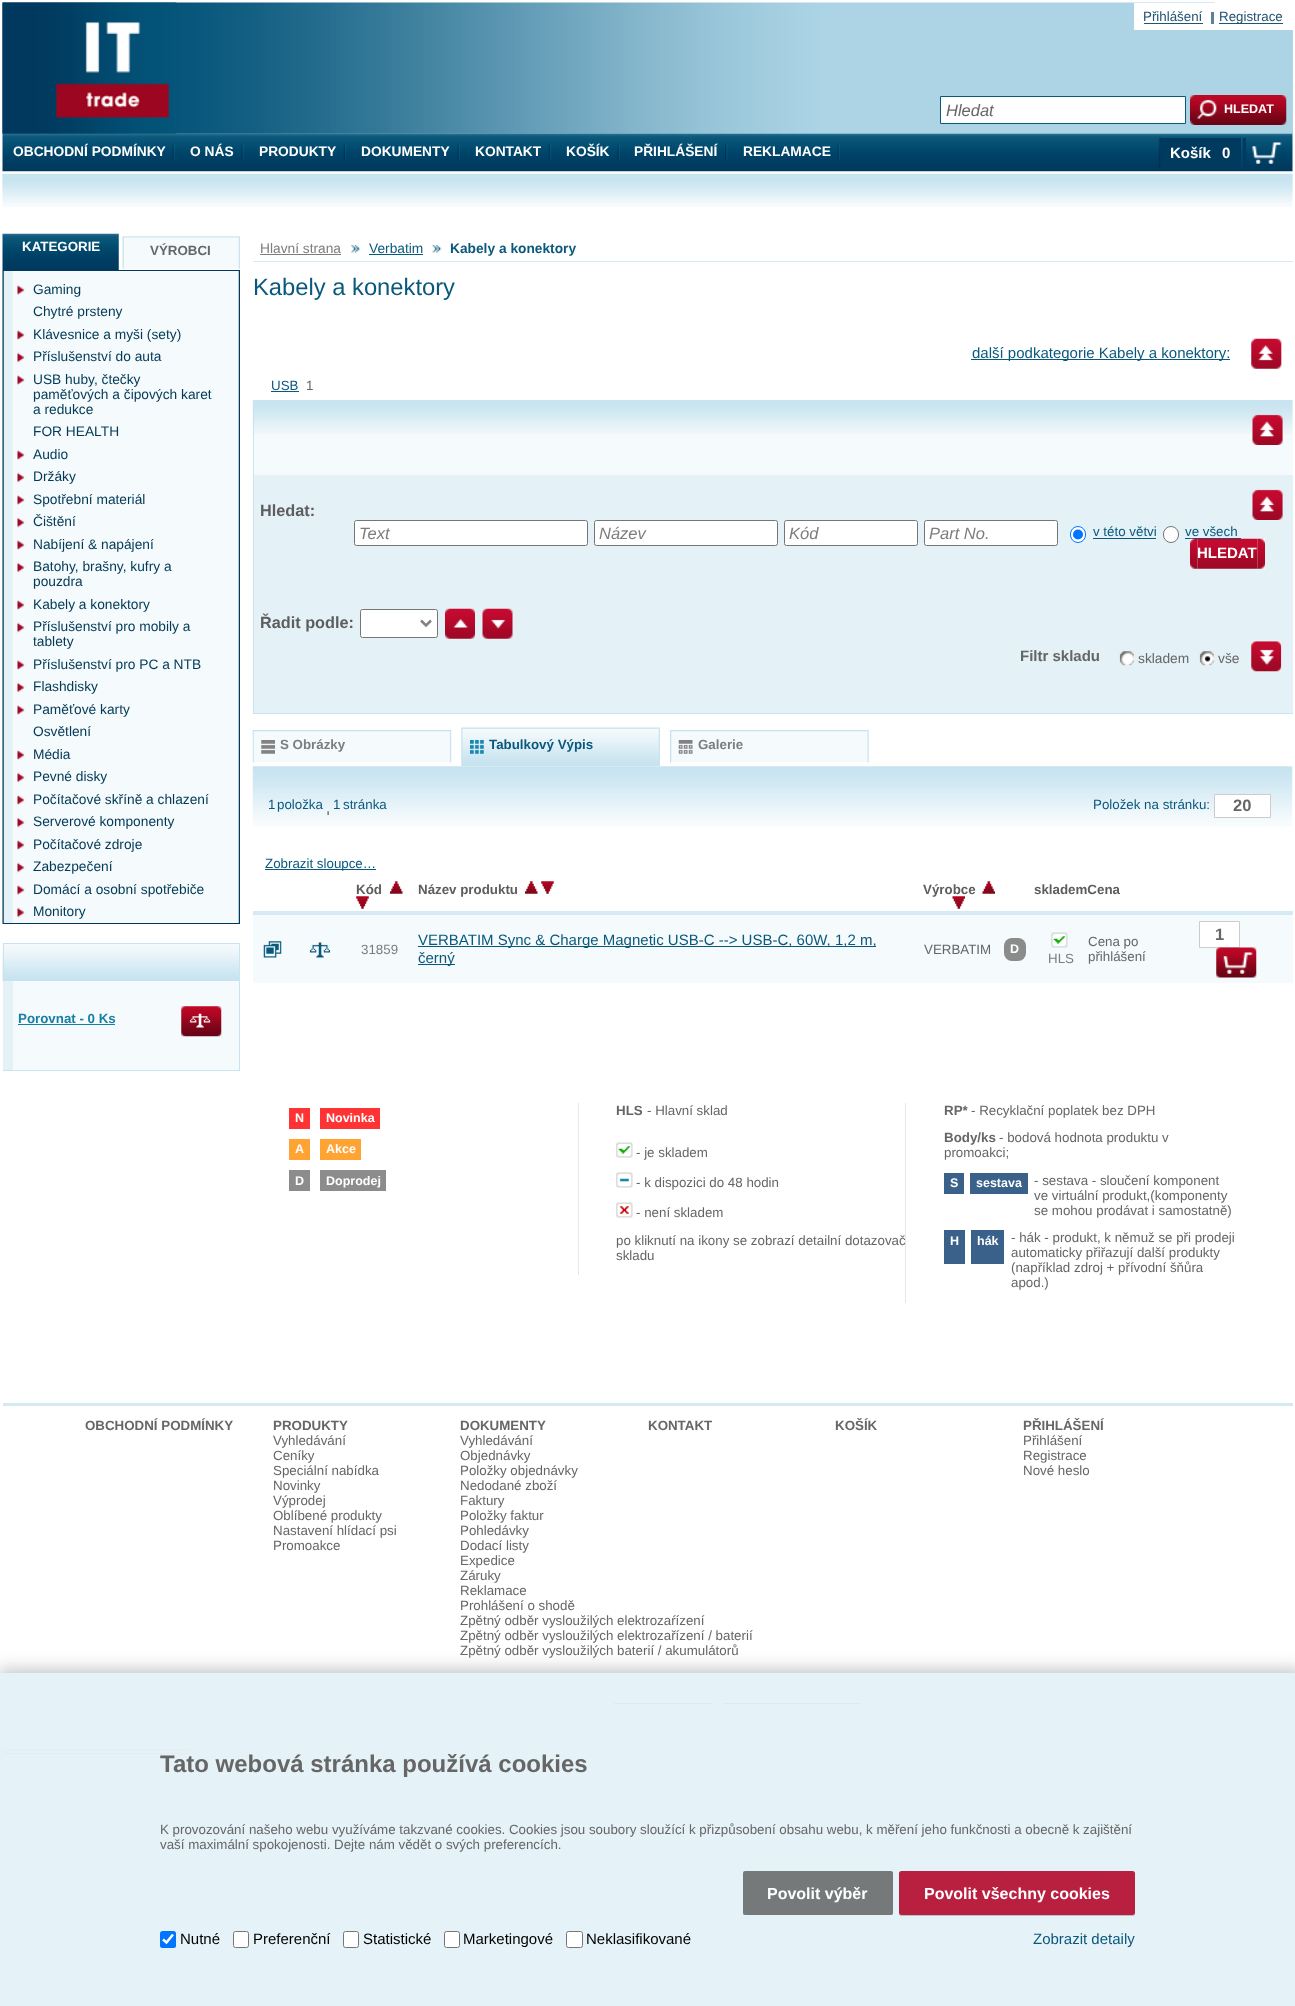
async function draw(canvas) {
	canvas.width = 1295;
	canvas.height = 2006;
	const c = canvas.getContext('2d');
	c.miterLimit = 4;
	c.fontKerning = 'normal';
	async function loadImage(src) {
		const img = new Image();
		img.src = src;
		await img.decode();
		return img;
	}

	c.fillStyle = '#fff';
	c.fillRect(0, 0, 1295, 2006);
	c.fillStyle = '#e5f2f7';
	c.fillRect(0, 1673, 1295, 333);
	c.fillStyle = '#acd4e5';
	c.fillRect(3, 30, 1290, 104);
	c.drawImage(await loadImage('img1.png'), 2, 2, 1213, 132);
	c.drawImage(await loadImage('img2.png'), 2, 2, 175, 132);
	c.fillStyle = '#fff';
	c.fillRect(1134, 3, 81, 27);
	c.font = '13.33px Liberation Sans';
	c.fillStyle = '#225373';
	c.fillText('Přihlášení', 1143, 21);
	for (const [x, y, w, h, color] of [
		[1144, 23, 59, 1, '#225373'],
		[1211, 12, 3, 12, '#5d8198'],
		[1219, 23, 64, 1, '#225373'],
	]) {
		c.fillStyle = color;
		c.fillRect(x, y, w, h);
	}
	c.fillText('Registrace', 1219, 21);
	c.drawImage(await loadImage('img3.png'), 2, 133, 1291, 39);
	c.drawImage(await loadImage('img4.png'), 172, 143, 3, 17);
	c.font = 'bold 13.75px Liberation Sans';
	c.fillStyle = '#fff';
	c.fillText('OBCHODNÍ PODMÍNKY', 13, 156);
	c.drawImage(await loadImage('img5.png'), 241, 143, 3, 17);
	c.fillText('O NÁS', 190, 156);
	c.drawImage(await loadImage('img6.png'), 343, 143, 4, 17);
	c.fillText('PRODUKTY', 259, 156);
	c.drawImage(await loadImage('img4.png'), 457, 143, 3, 17);
	c.fillText('DOKUMENTY', 361, 156);
	c.drawImage(await loadImage('img6.png'), 548, 143, 4, 17);
	c.fillText('KONTAKT', 475, 156);
	c.drawImage(await loadImage('img4.png'), 617, 143, 3, 17);
	c.fillText('KOŠÍK', 566, 156);
	c.drawImage(await loadImage('img7.png'), 725, 143, 3, 17);
	c.fillText('PŘIHLÁŠENÍ', 634, 156);
	c.drawImage(await loadImage('img4.png'), 837, 143, 3, 17);
	c.fillText('REKLAMACE', 743, 156);
	c.drawImage(await loadImage('img8.png'), 2, 173, 1291, 34);
	c.drawImage(await loadImage('img9.png'), 2, 174, 1291, 18);
	c.fillStyle = '#003a5f';
	c.fillRect(1159, 138, 87, 26);
	c.drawImage(await loadImage('img10.png'), 1158, 137, 4, 31);
	c.font = 'bold 15px Liberation Sans';
	c.fillStyle = '#fff';
	c.fillText('Košík', 1170, 158);
	c.drawImage(await loadImage('img11.png'), 1240, 137, 3, 31);
	c.fillText('0', 1222, 158);
	c.drawImage(await loadImage('img12.png'), 1252, 142, 30, 22);
	c.beginPath();
	c.rect(940.5, 96.5, 245, 27);
	c.fill();
	c.strokeStyle = '#0a597d';
	c.stroke();
	c.font = 'italic 16.5px Liberation Sans';
	c.fillStyle = '#666';
	c.fillText('Hledat', 946, 116);
	c.drawImage(await loadImage('img13.png'), 1190, 95, 97, 30);
	c.font = 'bold 12.5px Liberation Sans';
	c.fillStyle = '#fff';
	c.fillText('HLEDAT', 1224, 113);
	c.drawImage(await loadImage('img14.png'), 2, 233, 117, 37);
	c.font = 'bold 13.33px Liberation Sans';
	c.fillText('KATEGORIE', 22, 251);
	c.drawImage(await loadImage('img15.png'), 122, 236, 118, 33);
	c.fillStyle = '#666';
	c.fillText('VÝROBCI', 150, 255);
	c.fillStyle = '#e4f1f7';
	c.fillRect(2, 270, 1, 654);
	c.drawImage(await loadImage('img16.png'), 2, 270, 238, 654);
	c.fillStyle = '#00395d';
	c.fillRect(3, 270, 237, 1);
	c.fillRect(3, 923, 237, 1);
	c.drawImage(await loadImage('img17.png'), 17, 285, 8, 10);
	c.font = '13.75px Liberation Sans';
	c.fillStyle = '#013956';
	c.fillText('Gaming', 33, 294);
	c.fillText('Chytré prsteny', 33, 316);
	c.drawImage(await loadImage('img17.png'), 17, 330, 8, 10);
	c.fillText('Klávesnice a myši (sety)', 33, 339);
	c.drawImage(await loadImage('img18.png'), 17, 352, 8, 11);
	c.fillText('Příslušenství do auta', 33, 361);
	c.drawImage(await loadImage('img17.png'), 17, 375, 8, 10);
	for (const [text, x, y] of [
		['USB huby, čtečky', 33, 384],
		['paměťových a čipových karet', 33, 399],
		['a redukce', 33, 414],
		['FOR HEALTH', 33, 436],
	]) {
		c.fillText(text, x, y);
	}
	c.drawImage(await loadImage('img17.png'), 17, 450, 8, 10);
	c.fillText('Audio', 33, 459);
	c.drawImage(await loadImage('img18.png'), 17, 472, 8, 11);
	c.fillText('Držáky', 33, 481);
	c.drawImage(await loadImage('img17.png'), 17, 495, 8, 10);
	c.fillText('Spotřební materiál', 33, 504);
	c.drawImage(await loadImage('img18.png'), 17, 517, 8, 11);
	c.fillText('Čištění', 33, 526);
	c.drawImage(await loadImage('img17.png'), 17, 540, 8, 10);
	c.fillText('Nabíjení & napájení', 33, 549);
	c.drawImage(await loadImage('img18.png'), 17, 562, 8, 11);
	c.fillText('Batohy, brašny, kufry a', 33, 571);
	c.fillText('pouzdra', 33, 586);
	c.drawImage(await loadImage('img17.png'), 17, 600, 8, 10);
	c.fillText('Kabely a konektory', 33, 609);
	c.drawImage(await loadImage('img18.png'), 17, 622, 8, 11);
	c.fillText('Příslušenství pro mobily a', 33, 631);
	c.fillText('tablety', 33, 646);
	c.drawImage(await loadImage('img17.png'), 17, 660, 8, 10);
	c.fillText('Příslušenství pro PC a NTB', 33, 669);
	c.drawImage(await loadImage('img18.png'), 17, 682, 8, 11);
	c.fillText('Flashdisky', 33, 691);
	c.drawImage(await loadImage('img17.png'), 17, 705, 8, 10);
	c.fillText('Paměťové karty', 33, 714);
	c.fillText('Osvětlení', 33, 736);
	c.drawImage(await loadImage('img17.png'), 17, 750, 8, 10);
	c.fillText('Média', 33, 759);
	c.drawImage(await loadImage('img18.png'), 17, 772, 8, 11);
	c.fillText('Pevné disky', 33, 781);
	c.drawImage(await loadImage('img17.png'), 17, 795, 8, 10);
	c.fillText('Počítačové skříně a chlazení', 33, 804);
	c.drawImage(await loadImage('img18.png'), 17, 817, 8, 11);
	c.fillText('Serverové komponenty', 33, 826);
	c.drawImage(await loadImage('img17.png'), 17, 840, 8, 10);
	c.fillText('Počítačové zdroje', 33, 849);
	c.drawImage(await loadImage('img18.png'), 17, 862, 8, 11);
	c.fillText('Zabezpečení', 33, 871);
	c.drawImage(await loadImage('img17.png'), 17, 885, 8, 10);
	c.fillText('Domácí a osobní spotřebiče', 33, 894);
	c.drawImage(await loadImage('img18.png'), 17, 907, 8, 11);
	c.fillText('Monitory', 33, 916);
	c.drawImage(await loadImage('img19.png'), 2, 944, 237, 38);
	c.strokeStyle = '#c7e4f0';
	c.strokeRect(3.5, 943.5, 236, 127);
	c.fillStyle = '#f5fafc';
	c.fillRect(13, 981, 226, 89);
	c.fillStyle = '#e4f1f7';
	c.fillRect(3, 981, 10, 89);
	c.font = 'bold 13.33px Liberation Sans';
	c.fillStyle = '#177fa5';
	c.fillText('Porovnat - 0 Ks', 18, 1023);
	c.fillRect(18, 1024, 97, 1);
	c.drawImage(await loadImage('img20.png'), 181, 1006, 41, 31);
	c.fillStyle = '#d4eaf4';
	c.fillRect(253, 261, 1040, 1);
	c.font = '13.75px Liberation Sans';
	c.fillStyle = '#7d7d7d';
	c.fillText('Hlavní strana', 260, 253);
	c.fillRect(260, 254, 81, 1);
	c.drawImage(await loadImage('img21.png'), 351, 245, 9, 8);
	c.fillStyle = '#0a597d';
	c.fillText('Verbatim', 369, 253);
	c.fillRect(369, 254, 54, 1);
	c.drawImage(await loadImage('img22.png'), 432, 245, 10, 8);
	c.font = 'bold 13.75px Liberation Sans';
	c.fillText('Kabely a konektory', 450, 253);
	c.font = '23.75px Liberation Sans';
	c.fillText('Kabely a konektory', 253, 295);
	c.drawImage(await loadImage('img23.png'), 1251, 338, 31, 31);
	c.fillRect(971, 359, 259, 1);
	c.font = '15px Liberation Sans';
	c.fillText('další podkategorie Kabely a konektory:', 972, 358);
	c.font = '13.33px Liberation Sans';
	c.fillText('USB', 271, 390);
	c.fillRect(271, 391, 28, 1);
	c.fillStyle = '#666';
	c.fillText('1', 306, 390);
	c.fillStyle = '#f5fafc';
	c.fillRect(254, 400, 1039, 75);
	c.drawImage(await loadImage('img24.png'), 252, 400, 1041, 34);
	c.fillStyle = '#c7e4f0';
	c.fillRect(253, 400, 1, 75);
	c.drawImage(await loadImage('img25.png'), 1252, 414, 31, 31);
	for (const [x, y, w, h, color] of [
		[254, 475, 1039, 238, '#e4f1f7'],
		[253, 713, 1040, 1, '#c7e4f0'],
		[253, 475, 1, 239, '#c7e4f0'],
	]) {
		c.fillStyle = color;
		c.fillRect(x, y, w, h);
	}
	c.font = 'bold 16.25px Liberation Sans';
	c.fillStyle = '#5d5d5d';
	c.fillText('Hledat:', 260, 516);
	c.fillStyle = '#fff';
	c.beginPath();
	c.roundRect(354.5, 520.5, 233, 25, 2);
	c.fill();
	c.strokeStyle = '#767676';
	c.stroke();
	c.font = 'italic 16.5px Liberation Sans';
	c.fillStyle = '#7d7d7d';
	c.fillText('Text', 359, 539);
	c.fillStyle = '#fff';
	c.beginPath();
	c.roundRect(594.5, 520.5, 183, 25, 2);
	c.fill();
	c.stroke();
	c.fillStyle = '#7d7d7d';
	c.fillText('Název', 599, 539);
	c.fillStyle = '#fff';
	c.beginPath();
	c.roundRect(784.5, 520.5, 133, 25, 2);
	c.fill();
	c.stroke();
	c.fillStyle = '#7d7d7d';
	c.fillText('Kód', 789, 539);
	c.fillStyle = '#fff';
	c.beginPath();
	c.roundRect(924.5, 520.5, 133, 25, 2);
	c.fill();
	c.stroke();
	c.fillStyle = '#7d7d7d';
	c.fillText('Part No.', 929, 539);
	c.fillStyle = '#fff';
	c.beginPath();
	c.roundRect(1070.5, 526.5, 15, 16, 7.5);
	c.fill();
	c.strokeStyle = '#0075ff';
	c.stroke();
	c.fillStyle = '#0075ff';
	c.beginPath();
	c.arc(1078, 534.5, 5, 0, 2 * Math.PI);
	c.fill();
	c.font = '13.33px Liberation Sans';
	c.fillStyle = '#0a597d';
	c.fillText('v této větvi', 1093, 536);
	c.fillRect(1093, 538, 63, 1);
	c.fillStyle = '#fff';
	c.beginPath();
	c.roundRect(1163.5, 526.5, 15, 16, 7.5);
	c.fill();
	c.strokeStyle = '#767676';
	c.stroke();
	c.fillStyle = '#0a597d';
	c.fillText('ve všech', 1185, 536);
	c.fillRect(1185, 538, 56, 1);
	c.drawImage(await loadImage('img26.png'), 1190, 538, 8, 31);
	c.drawImage(await loadImage('img27.png'), 1197, 538, 61, 31);
	c.font = 'bold 15px Liberation Sans';
	c.fillStyle = '#fff';
	c.fillText('HLEDAT', 1197, 558);
	c.drawImage(await loadImage('img28.png'), 1257, 538, 8, 31);
	c.font = 'bold 16.25px Liberation Sans';
	c.fillStyle = '#5d5d5d';
	c.fillText('Řadit podle:', 260, 628);
	c.fillStyle = '#fff';
	c.beginPath();
	c.roundRect(360.5, 609.5, 77, 28, 2);
	c.fill();
	c.stroke();
	c.beginPath();
	c.moveTo(421, 620.5);
	c.lineTo(426, 625.5);
	c.lineTo(431, 620.5);
	c.strokeStyle = '#828282';
	c.lineWidth = 2.5;
	c.stroke();
	c.drawImage(await loadImage('img29.png'), 445, 608, 30, 31);
	c.drawImage(await loadImage('img30.png'), 482, 608, 31, 31);
	c.font = 'bold 15px Liberation Sans';
	c.fillStyle = '#666';
	c.fillText('Filtr skladu', 1020, 661);
	c.drawImage(await loadImage('img31.png'), 1251, 641, 31, 31);
	c.drawImage(await loadImage('img32.png'), 1119, 651, 15, 15);
	c.font = '13.75px Liberation Sans';
	c.fillText('skladem', 1138, 663);
	c.drawImage(await loadImage('img33.png'), 1199, 651, 15, 15);
	c.fillText('vše', 1218, 663);
	c.drawImage(await loadImage('img34.png'), 1252, 489, 31, 31);
	c.drawImage(await loadImage('img35.png'), 252, 730, 200, 33);
	c.drawImage(await loadImage('img36.png'), 261, 740, 14, 14);
	c.font = 'bold 13.33px Liberation Sans';
	c.fillStyle = '#7d7d7d';
	c.fillText('S Obrázky', 280, 749);
	c.drawImage(await loadImage('img37.png'), 461, 727, 199, 39);
	c.drawImage(await loadImage('img38.png'), 470, 740, 14, 14);
	c.fillStyle = '#0a597d';
	c.fillText('Tabulkový Výpis', 489, 749);
	c.drawImage(await loadImage('img39.png'), 670, 730, 199, 33);
	c.drawImage(await loadImage('img40.png'), 678, 740, 15, 14);
	c.fillStyle = '#7d7d7d';
	c.fillText('Galerie', 698, 749);
	c.drawImage(await loadImage('img41.png'), 252, 766, 1041, 61);
	c.font = '13.33px Liberation Sans';
	c.fillStyle = '#0a597d';
	for (const [text, x, y] of [
		['1', 268, 809],
		['položka', 277, 809],
		['1', 333, 809],
		['stránka', 343, 809],
	]) {
		c.fillText(text, x, y);
	}
	c.drawImage(await loadImage('img42.png'), 327, 811, 2, 4);
	c.fillText('Položek na stránku:', 1093, 809);
	c.fillStyle = '#fff';
	c.beginPath();
	c.rect(1214.5, 794.5, 56, 23);
	c.fill();
	c.strokeStyle = '#ccc';
	c.lineWidth = 1;
	c.stroke();
	c.font = 'bold 16.5px Liberation Sans';
	c.fillStyle = '#666';
	c.fillText('20', 1233, 811);
	c.fillStyle = '#0a597d';
	c.fillRect(265, 869, 111, 1);
	c.font = '13.33px Liberation Sans';
	c.fillText('Zobrazit sloupce…', 265, 868);
	c.font = 'bold 13.33px Liberation Sans';
	c.fillStyle = '#5d5d5d';
	c.fillText('Kód', 356, 894);
	c.drawImage(await loadImage('img43.png'), 390, 881, 13, 13);
	c.drawImage(await loadImage('img44.png'), 356, 896, 13, 13);
	c.fillText('Název produktu', 418, 894);
	c.drawImage(await loadImage('img45.png'), 525, 881, 13, 13);
	c.drawImage(await loadImage('img44.png'), 541, 881, 13, 13);
	c.fillText('Výrobce', 923, 894);
	c.drawImage(await loadImage('img46.png'), 982, 881, 13, 13);
	c.drawImage(await loadImage('img47.png'), 952, 896, 13, 13);
	c.fillText('sklademCena', 1034, 894);
	c.fillStyle = '#d4eaf4';
	c.fillRect(253, 911, 1040, 4);
	c.fillStyle = '#f5fafc';
	c.fillRect(253, 915, 1040, 68);
	c.drawImage(await loadImage('img48.png'), 263, 941, 19, 17);
	c.drawImage(await loadImage('img49.png'), 310, 942, 20, 16);
	c.font = '13.33px Liberation Sans';
	c.fillStyle = '#7d7d7d';
	c.fillText('31859', 361, 954);
	c.fillStyle = '#0a597d';
	c.fillRect(418, 946, 458, 1);
	c.font = '15px Liberation Sans';
	c.fillText('VERBATIM Sync & Charge Magnetic USB-C --> USB-C, 60W, 1,2 m,', 418, 945);
	c.fillRect(418, 964, 37, 1);
	c.fillText('černý', 418, 963);
	c.font = '13.33px Liberation Sans';
	c.fillStyle = '#666';
	c.fillText('VERBATIM', 924, 954);
	c.fillStyle = '#8a8b8b';
	c.beginPath();
	c.roundRect(1004, 938, 22, 23, 8);
	c.fill();
	c.font = 'bold 12.5px Liberation Sans';
	c.fillStyle = '#fff';
	c.fillText('D', 1010, 953);
	c.font = '13.33px Liberation Sans';
	c.fillStyle = '#666';
	c.fillText('Cena po', 1088, 946);
	c.fillText('přihlášení', 1088, 961);
	c.fillStyle = '#fff';
	c.beginPath();
	c.rect(1199.5, 921.5, 40, 26);
	c.fill();
	c.stroke();
	c.font = 'bold 16.5px Liberation Sans';
	c.fillStyle = '#666';
	c.fillText('1', 1215, 940);
	c.drawImage(await loadImage('img50.png'), 1216, 947, 41, 31);
	c.drawImage(await loadImage('img51.png'), 1051, 932, 17, 16);
	c.font = '13.33px Liberation Sans';
	c.fillStyle = '#7d7d7d';
	c.fillText('HLS', 1048, 963);
	c.fillStyle = '#f33';
	c.fillRect(289, 1108, 21, 21);
	c.font = 'bold 12.5px Liberation Sans';
	c.fillStyle = '#fff';
	c.fillText('N', 295, 1122);
	c.fillStyle = '#f33';
	c.fillRect(320, 1108, 60, 21);
	c.fillStyle = '#fff';
	c.fillText('Novinka', 326, 1122);
	c.fillStyle = '#ffa333';
	c.fillRect(289, 1139, 21, 21);
	c.fillStyle = '#fff';
	c.fillText('A', 295, 1153);
	c.fillStyle = '#ffa333';
	c.fillRect(320, 1139, 41, 21);
	c.fillStyle = '#fff';
	c.fillText('Akce', 326, 1153);
	c.fillStyle = '#8c8c8c';
	c.fillRect(289, 1170, 21, 21);
	c.fillStyle = '#fff';
	c.fillText('D', 295, 1185);
	c.fillStyle = '#8c8c8c';
	c.fillRect(320, 1170, 66, 21);
	c.fillStyle = '#fff';
	c.fillText('Doprodej', 326, 1185);
	c.fillStyle = '#e4e8ea';
	c.fillRect(578, 1103, 1, 172);
	c.font = 'bold 13.33px Liberation Sans';
	c.fillStyle = '#666';
	c.fillText('HLS', 616, 1115);
	c.font = '13.33px Liberation Sans';
	c.fillText('- Hlavní sklad', 647, 1115);
	c.drawImage(await loadImage('img52.png'), 616, 1142, 17, 16);
	c.fillText('- je skladem', 636, 1157);
	c.drawImage(await loadImage('img53.png'), 616, 1172, 17, 16);
	c.fillText('- k dispozici do 48 hodin', 636, 1187);
	c.drawImage(await loadImage('img54.png'), 616, 1202, 17, 16);
	for (const [text, x, y] of [
		['- není skladem', 636, 1217],
		['po kliknutí na ikony se zobrazí detailní dotazovač', 616, 1245],
		['skladu', 616, 1260],
	]) {
		c.fillText(text, x, y);
	}
	c.fillStyle = '#e4e8ea';
	c.fillRect(905, 1103, 1, 200);
	c.font = 'bold 13.33px Liberation Sans';
	c.fillStyle = '#666';
	c.fillText('RP*', 944, 1115);
	c.font = '13.33px Liberation Sans';
	c.fillText('- Recyklační poplatek bez DPH', 971, 1115);
	c.font = 'bold 13.33px Liberation Sans';
	c.fillText('Body/ks', 944, 1142);
	c.font = '13.33px Liberation Sans';
	c.fillText('- bodová hodnota produktu v', 999, 1142);
	c.fillText('promoakci;', 944, 1157);
	c.fillStyle = '#3a618a';
	c.fillRect(944, 1173, 20, 21);
	c.font = 'bold 12.5px Liberation Sans';
	c.fillStyle = '#fff';
	c.fillText('S', 950, 1187);
	c.fillStyle = '#3a618a';
	c.fillRect(970, 1173, 58, 21);
	c.fillStyle = '#fff';
	c.fillText('sestava', 976, 1187);
	c.font = '13.33px Liberation Sans';
	c.fillStyle = '#666';
	for (const [text, x, y] of [
		['- sestava - sloučení komponent', 1034, 1185],
		['ve virtuální produkt,(komponenty', 1034, 1200],
		['se mohou prodávat i samostatně)', 1034, 1215],
	]) {
		c.fillText(text, x, y);
	}
	c.fillStyle = '#3a618a';
	c.fillRect(944, 1230, 21, 34);
	c.font = 'bold 12.5px Liberation Sans';
	c.fillStyle = '#fff';
	c.fillText('H', 950, 1245);
	c.fillStyle = '#3a618a';
	c.fillRect(971, 1230, 33, 34);
	c.fillStyle = '#fff';
	c.fillText('hák', 977, 1245);
	c.font = '13.33px Liberation Sans';
	c.fillStyle = '#666';
	for (const [text, x, y] of [
		['- hák - produkt, k němuž se při prodeji', 1011, 1242],
		['automaticky přiřazují další produkty', 1011, 1257],
		['(například zdroj + přívodní šňůra', 1011, 1272],
		['apod.)', 1011, 1287],
	]) {
		c.fillText(text, x, y);
	}
	c.fillStyle = '#d4eaf4';
	c.fillRect(3, 1403, 1290, 3);
	c.font = 'bold 13.33px Liberation Sans';
	c.fillStyle = '#666';
	c.fillText('OBCHODNÍ PODMÍNKY', 85, 1430);
	c.fillText('PRODUKTY', 273, 1430);
	c.font = '13.33px Liberation Sans';
	for (const [text, x, y] of [
		['Vyhledávání', 273, 1445],
		['Ceníky', 273, 1460],
		['Speciální nabídka', 273, 1475],
		['Novinky', 273, 1490],
		['Výprodej', 273, 1505],
		['Oblíbené produkty', 273, 1520],
		['Nastavení hlídací psi', 273, 1535],
		['Promoakce', 273, 1550],
	]) {
		c.fillText(text, x, y);
	}
	c.font = 'bold 13.33px Liberation Sans';
	c.fillText('DOKUMENTY', 460, 1430);
	c.font = '13.33px Liberation Sans';
	for (const [text, x, y] of [
		['Vyhledávání', 460, 1445],
		['Objednávky', 460, 1460],
		['Položky objednávky', 460, 1475],
		['Nedodané zboží', 460, 1490],
		['Faktury', 460, 1505],
		['Položky faktur', 460, 1520],
		['Pohledávky', 460, 1535],
		['Dodací listy', 460, 1550],
		['Expedice', 460, 1565],
		['Záruky', 460, 1580],
		['Reklamace', 460, 1595],
		['Prohlášení o shodě', 460, 1610],
		['Zpětný odběr vysloužilých elektrozaŕízení', 460, 1625],
		['Zpětný odběr vysloužilých elektrozařízení / baterií', 460, 1640],
		['Zpětný odběr vysloužilých baterií / akumulátorů', 460, 1655],
	]) {
		c.fillText(text, x, y);
	}
	c.font = 'bold 13.33px Liberation Sans';
	c.fillText('KOŠÍK', 835, 1430);
	c.fillText('PŘIHLÁŠENÍ', 1023, 1430);
	c.font = '13.33px Liberation Sans';
	for (const [text, x, y] of [
		['Přihlášení', 1023, 1445],
		['Registrace', 1023, 1460],
		['Nové heslo', 1023, 1475],
	]) {
		c.fillText(text, x, y);
	}
	c.font = 'bold 13.33px Liberation Sans';
	c.fillText('KONTAKT', 648, 1430);
	c.fillStyle = '#deeaf0';
	c.fillRect(614, 1703, 99, 1);
	c.fillRect(724, 1703, 136, 1);
	c.beginPath();
	c.roundRect(3.5, 1749.5, 186, 4, 2);
	c.strokeStyle = '#e1edf3';
	c.stroke();
	c.save();
	c.beginPath();
	c.rect(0, 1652, 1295, 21);
	c.clip();
	c.fillStyle = '#c0c0c0';
	c.filter = 'blur(9px)';
	c.beginPath();
	c.rect(-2, 1670, 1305, 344);
	c.fill();
	c.filter = 'none';
	c.restore();
	c.font = 'bold 24px Liberation Sans';
	c.fillStyle = '#666';
	c.fillText('Tato webová stránka používá cookies', 160, 1772);
	c.font = '13.33px Liberation Sans';
	c.fillText('K provozování našeho webu využíváme takzvané cookies. Cookies jsou soubory sloužící k přizpůsobení obsahu webu, k měření jeho funkčnosti a obecně k zajištění', 160, 1834);
	c.fillText('vaší maximální spokojenosti. Dejte nám vědět o svých preferencích.', 160, 1849);
	c.save();
	c.beginPath();
	c.moveTo(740, 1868);
	c.lineTo(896, 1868);
	c.lineTo(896, 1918);
	c.lineTo(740, 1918);
	c.closePath();
	c.moveTo(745.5, 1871);
	c.lineTo(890.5, 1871);
	c.bezierCurveTo(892, 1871, 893, 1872, 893, 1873.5);
	c.lineTo(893, 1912.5);
	c.bezierCurveTo(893, 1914, 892, 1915, 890.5, 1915);
	c.lineTo(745.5, 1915);
	c.bezierCurveTo(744, 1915, 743, 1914, 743, 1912.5);
	c.lineTo(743, 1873.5);
	c.bezierCurveTo(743, 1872, 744, 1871, 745.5, 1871);
	c.closePath();
	c.clip('evenodd');
	c.fillStyle = '#5a5a5acc';
	c.filter = 'blur(0.5px)';
	c.beginPath();
	c.roundRect(743, 1871, 150, 44, 2.5);
	c.fill();
	c.filter = 'none';
	c.restore();
	c.fillStyle = '#5a5a5acc';
	c.beginPath();
	c.roundRect(743, 1871, 150, 44, 2.5);
	c.fill();
	c.font = 'bold 16px Liberation Sans';
	c.fillStyle = '#fff';
	c.fillText('Povolit výběr', 767, 1899);
	c.save();
	c.beginPath();
	c.moveTo(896, 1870);
	c.lineTo(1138, 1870);
	c.lineTo(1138, 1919);
	c.lineTo(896, 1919);
	c.closePath();
	c.moveTo(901.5, 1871);
	c.lineTo(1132.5, 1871);
	c.bezierCurveTo(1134, 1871, 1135, 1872, 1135, 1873.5);
	c.lineTo(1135, 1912.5);
	c.bezierCurveTo(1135, 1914, 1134, 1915, 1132.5, 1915);
	c.lineTo(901.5, 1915);
	c.bezierCurveTo(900, 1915, 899, 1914, 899, 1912.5);
	c.lineTo(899, 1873.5);
	c.bezierCurveTo(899, 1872, 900, 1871, 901.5, 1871);
	c.closePath();
	c.clip('evenodd');
	c.fillStyle = '#00000033';
	c.filter = 'blur(0.5px)';
	c.beginPath();
	c.roundRect(899, 1873, 236, 43, 2.5);
	c.fill();
	c.filter = 'none';
	c.restore();
	c.fillStyle = '#b4092be6';
	c.beginPath();
	c.roundRect(899, 1871, 236, 44, 2.5);
	c.fill();
	c.fillStyle = '#fff';
	c.fillText('Povolit všechny cookies', 924, 1899);
	c.fillStyle = '#0075ff';
	c.beginPath();
	c.roundRect(160, 1931, 16, 17, 2.5);
	c.fill();
	c.beginPath();
	c.moveTo(163, 1939.5);
	c.lineTo(166.5, 1942.5);
	c.lineTo(173, 1934.5);
	c.strokeStyle = '#fff';
	c.lineWidth = 2.6;
	c.stroke();
	c.font = '15px Liberation Sans';
	c.fillStyle = '#000';
	c.fillText('Nutné', 180, 1944);
	c.fillStyle = '#fff';
	c.beginPath();
	c.roundRect(233.5, 1931.5, 15, 16, 2);
	c.fill();
	c.strokeStyle = '#767676';
	c.lineWidth = 1;
	c.stroke();
	c.fillStyle = '#000';
	c.fillText('Preferenční', 253, 1944);
	c.fillStyle = '#fff';
	c.beginPath();
	c.roundRect(343.5, 1931.5, 15, 16, 2);
	c.fill();
	c.stroke();
	c.fillStyle = '#000';
	c.fillText('Statistické', 363, 1944);
	c.fillStyle = '#fff';
	c.beginPath();
	c.roundRect(444.5, 1931.5, 15, 16, 2);
	c.fill();
	c.stroke();
	c.fillStyle = '#000';
	c.fillText('Marketingové', 463, 1944);
	c.fillStyle = '#fff';
	c.beginPath();
	c.roundRect(566.5, 1931.5, 16, 16, 2);
	c.fill();
	c.stroke();
	c.fillStyle = '#000';
	c.fillText('Neklasifikované', 586, 1944);
	c.fillStyle = '#0a597d';
	c.fillText('Zobrazit detaily', 1033, 1944);
}

draw(document.querySelector('canvas'));
